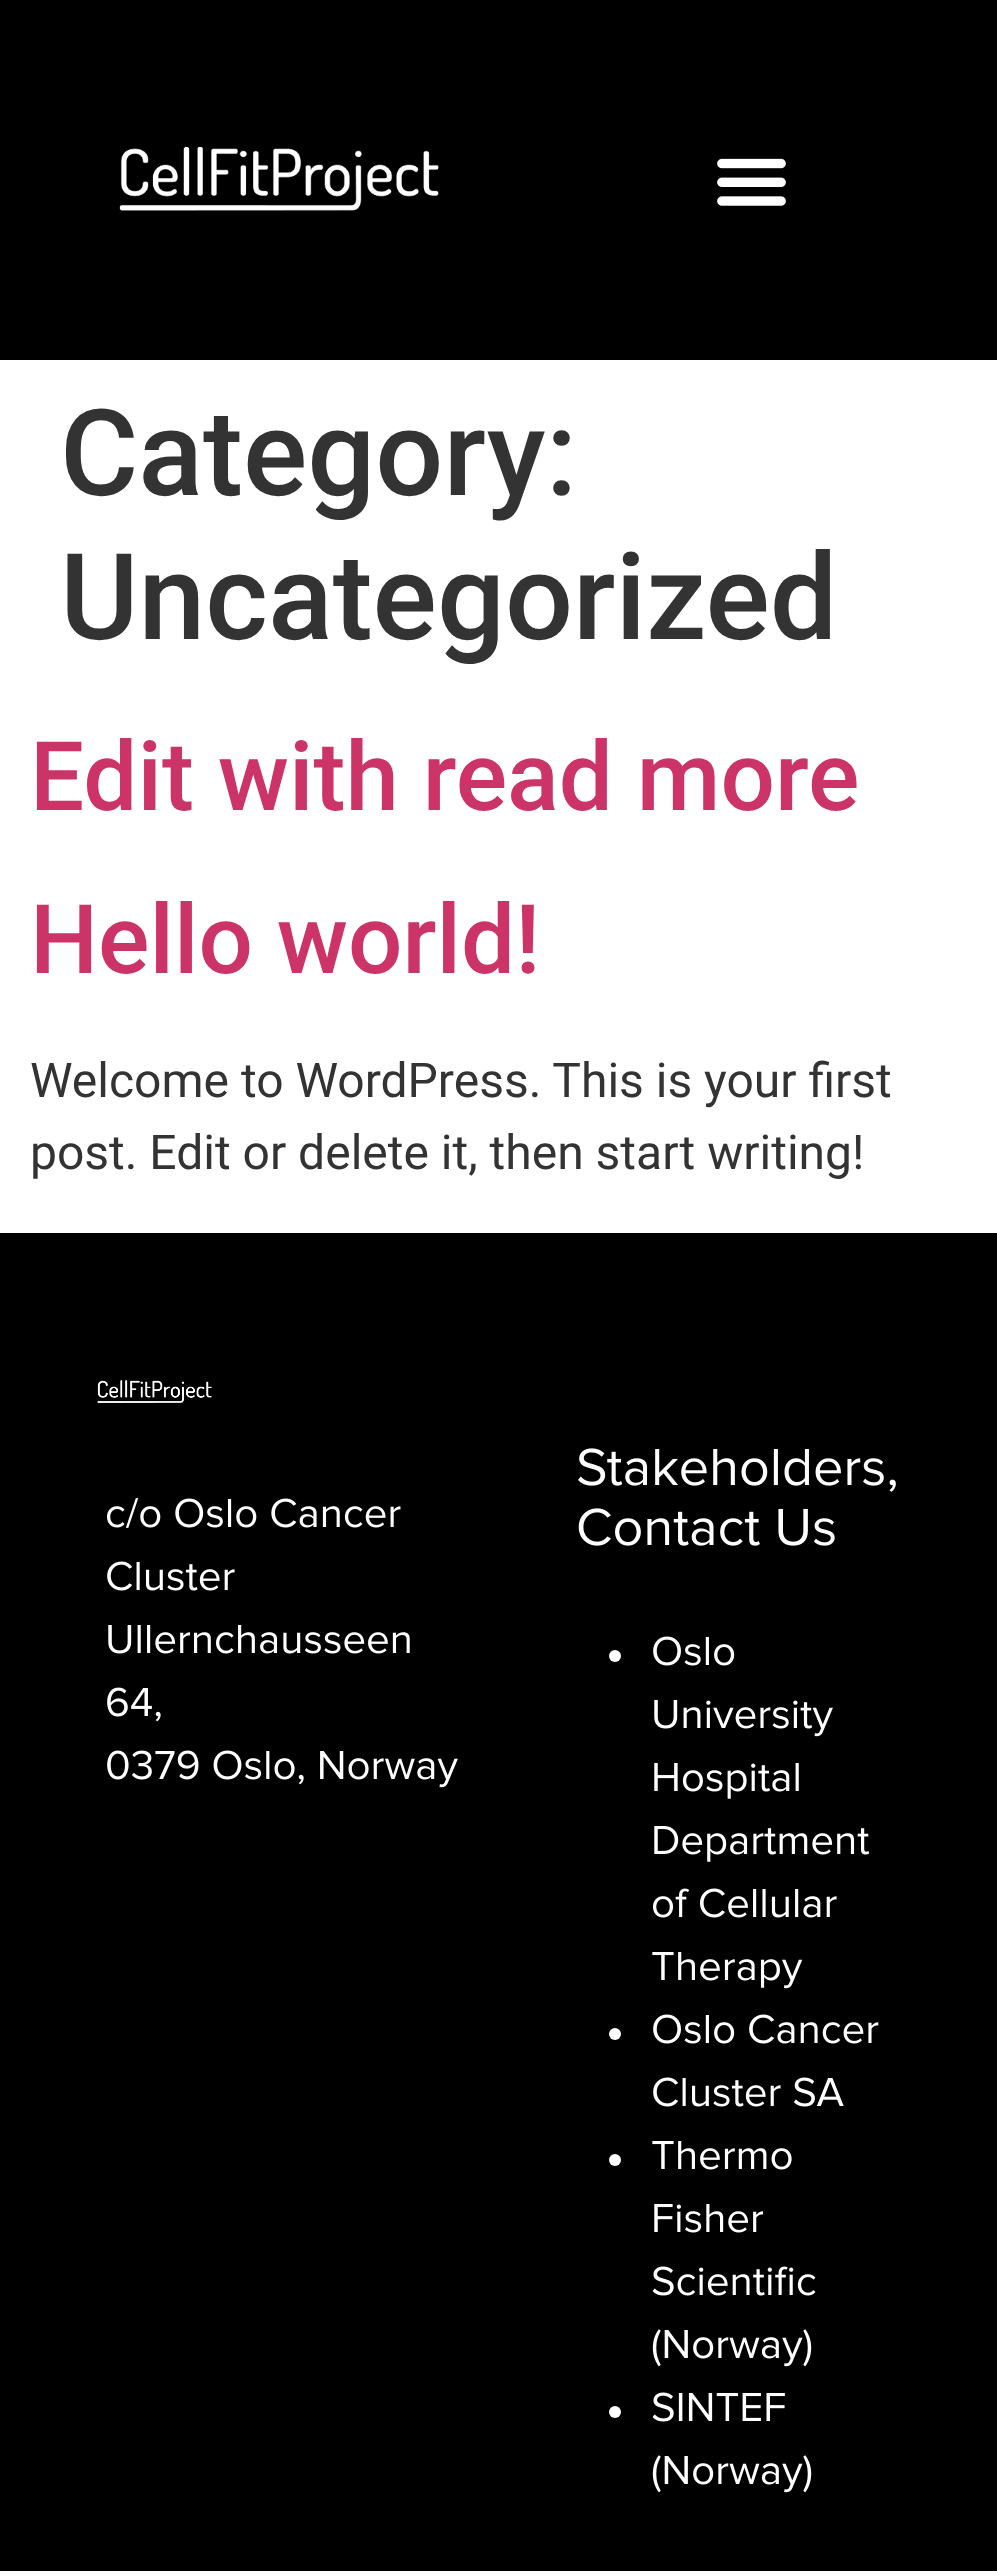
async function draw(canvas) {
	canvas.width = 997;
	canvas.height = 2571;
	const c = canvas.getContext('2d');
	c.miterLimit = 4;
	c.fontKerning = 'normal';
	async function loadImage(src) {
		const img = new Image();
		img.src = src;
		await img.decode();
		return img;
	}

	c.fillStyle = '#fff';
	c.fillRect(0, 0, 997, 2571);
	c.fillStyle = '#000';
	c.fillRect(0, 0, 997, 360);
	c.drawImage(await loadImage('img1.png'), 119, 146, 320, 65);
	c.drawImage(await loadImage('img2.png'), 717, 158, 69, 48);
	c.font = '500 120px Roboto';
	c.fillStyle = '#333';
	c.fillText('Category:', 60, 495);
	c.fillText('Uncategorized', 60, 639);
	c.font = '500 96px Roboto';
	c.fillStyle = '#c36';
	c.fillText('Edit with read more', 30, 810);
	c.fillText('Hello world!', 30, 973);
	c.font = '48px Roboto';
	c.fillStyle = '#333';
	c.fillText('Welcome to WordPress. This is your first', 30, 1097);
	c.fillText('post. Edit or delete it, then start writing!', 30, 1169);
	c.fillStyle = '#000';
	c.fillRect(0, 1233, 997, 1338);
	c.drawImage(await loadImage('img3.png'), 97, 1380, 115, 23);
	c.drawImage(await loadImage('img4.png'), 107, 1498, 294, 30);
	c.drawImage(await loadImage('img5.png'), 107, 1561, 128, 30);
	c.drawImage(await loadImage('img6.png'), 108, 1625, 302, 29);
	c.drawImage(await loadImage('img7.png'), 107, 1687, 54, 35);
	c.drawImage(await loadImage('img8.png'), 107, 1750, 351, 38);
	c.drawImage(await loadImage('img9.png'), 578, 1448, 318, 44);
	c.drawImage(await loadImage('img10.png'), 578, 1508, 257, 38);
	c.fillStyle = '#fff';
	c.beginPath();
	c.arc(615, 1656, 6, 0, 2 * Math.PI);
	c.fill();
	c.drawImage(await loadImage('img11.png'), 653, 1636, 82, 30);
	c.drawImage(await loadImage('img12.png'), 654, 1700, 179, 37);
	c.drawImage(await loadImage('img13.png'), 654, 1763, 145, 36);
	c.drawImage(await loadImage('img14.png'), 654, 1826, 216, 36);
	c.drawImage(await loadImage('img15.png'), 653, 1888, 184, 30);
	c.drawImage(await loadImage('img16.png'), 652, 1952, 151, 37);
	c.beginPath();
	c.arc(615, 2034, 6, 0, 2 * Math.PI);
	c.fill();
	c.drawImage(await loadImage('img17.png'), 653, 2014, 226, 30);
	c.drawImage(await loadImage('img18.png'), 653, 2077, 191, 30);
	c.beginPath();
	c.arc(615, 2160, 6, 0, 2 * Math.PI);
	c.fill();
	c.drawImage(await loadImage('img19.png'), 652, 2141, 140, 29);
	c.drawImage(await loadImage('img20.png'), 654, 2204, 109, 29);
	c.drawImage(await loadImage('img21.png'), 652, 2266, 164, 30);
	c.drawImage(await loadImage('img22.png'), 652, 2329, 160, 38);
	c.beginPath();
	c.arc(615, 2412, 6, 0, 2 * Math.PI);
	c.fill();
	c.drawImage(await loadImage('img23.png'), 652, 2392, 133, 30);
	c.drawImage(await loadImage('img22.png'), 652, 2455, 160, 38);
}

draw(document.querySelector('canvas'));
